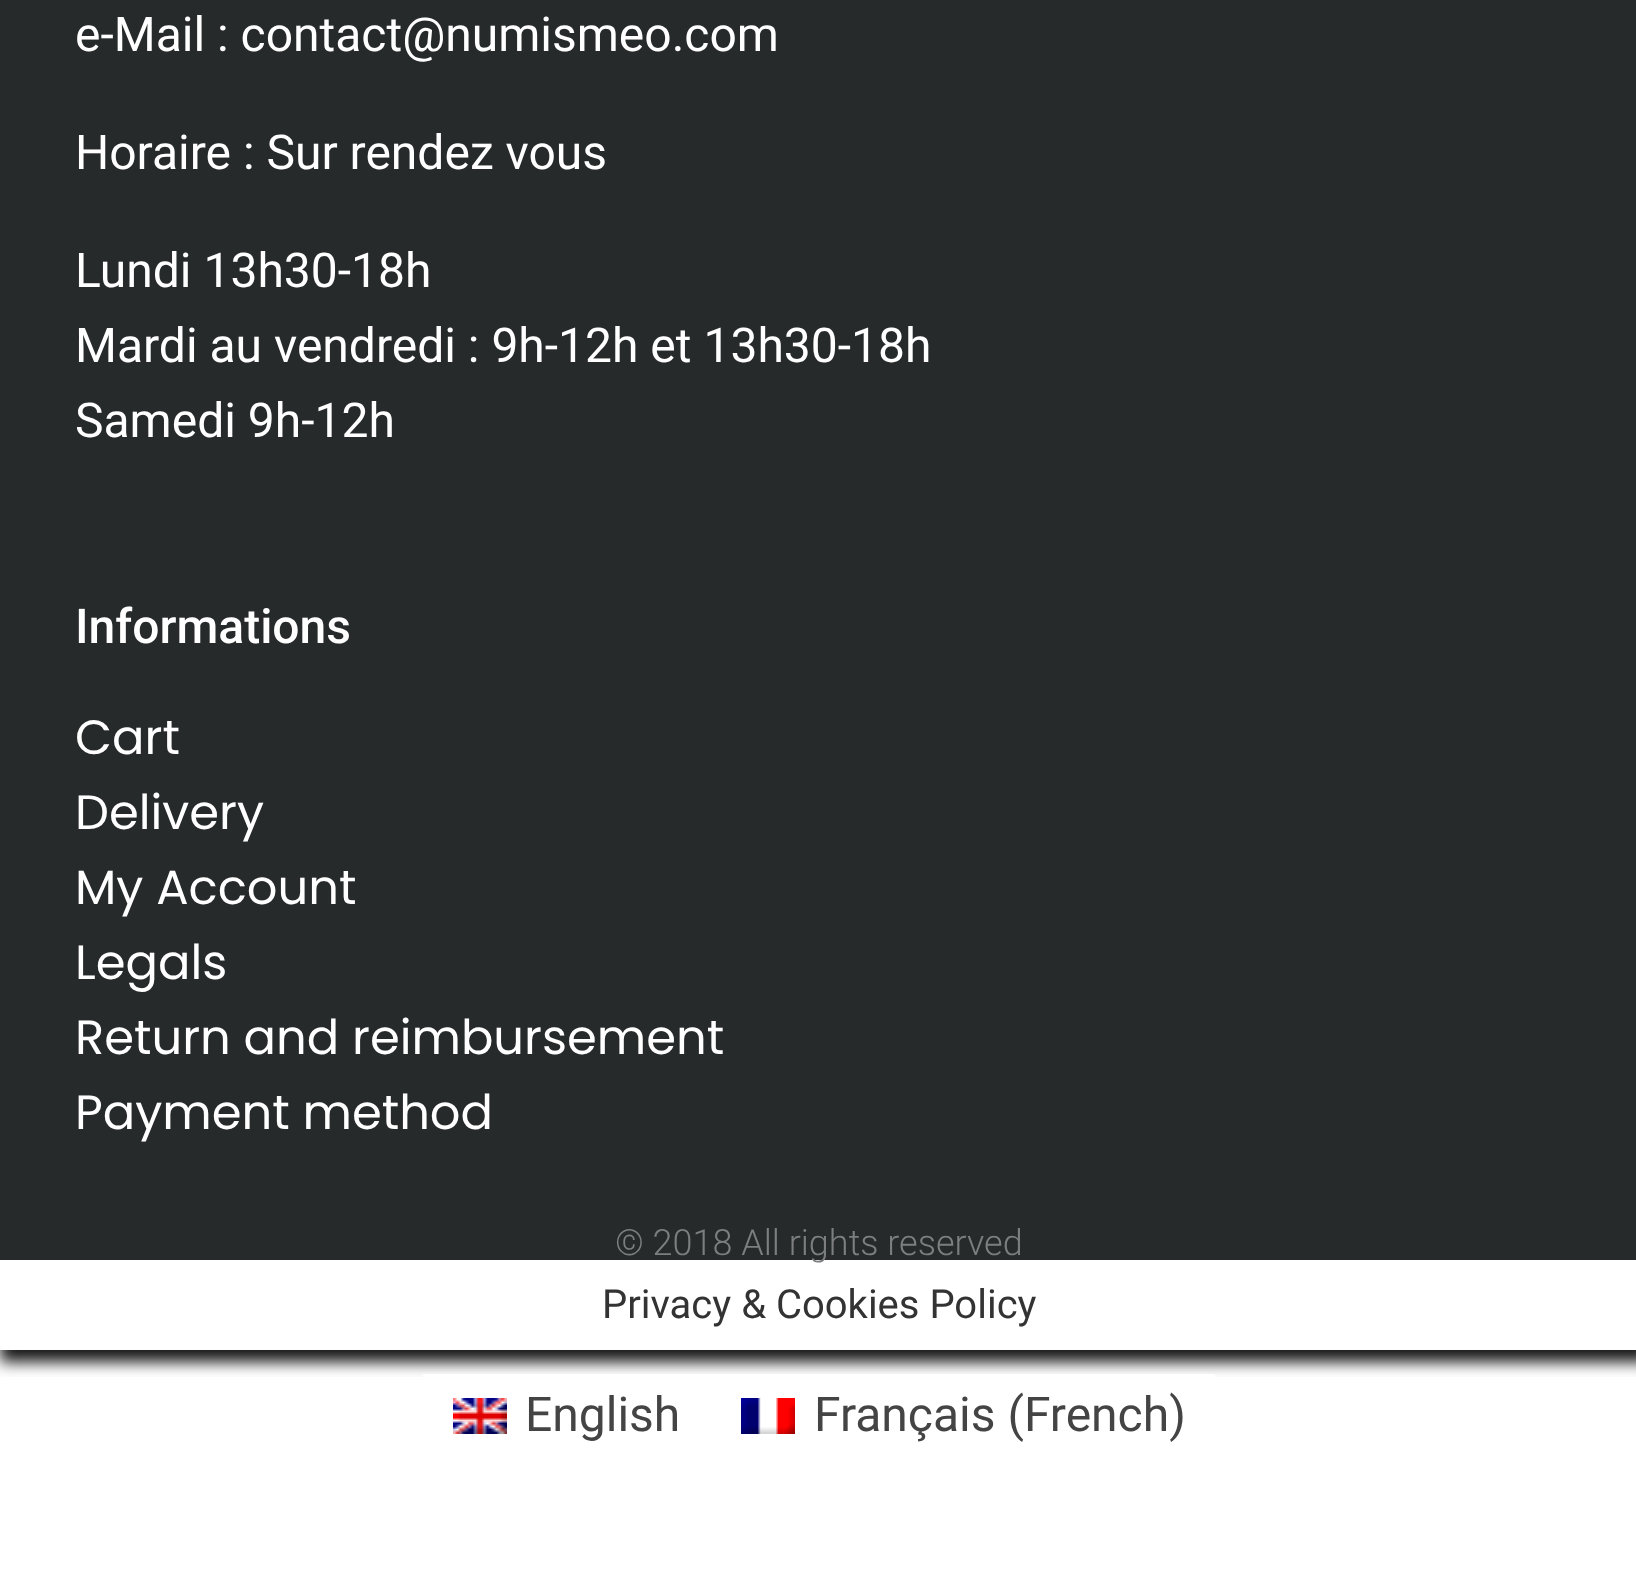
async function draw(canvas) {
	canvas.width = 1636;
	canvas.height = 1572;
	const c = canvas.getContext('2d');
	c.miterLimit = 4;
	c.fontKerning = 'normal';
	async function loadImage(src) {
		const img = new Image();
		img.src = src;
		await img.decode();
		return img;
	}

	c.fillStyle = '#fff';
	c.fillRect(0, 0, 1636, 1572);
	c.save();
	c.beginPath();
	c.rect(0, 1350, 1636, 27);
	c.clip();
	c.fillStyle = '#161616';
	c.filter = 'blur(7.5px)';
	c.beginPath();
	c.rect(0, 1260, 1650, 102);
	c.fill();
	c.filter = 'none';
	c.restore();
	c.fillStyle = '#262a2b';
	c.fillRect(0, 0, 1636, 1260);
	c.font = '48px Roboto';
	c.fillStyle = '#fff';
	for (const [text, x, y] of [
		['e-Mail : contact@numismeo.com', 75, 51],
		['Horaire : Sur rendez vous', 75, 169],
		['Lundi 13h30-18h', 75, 287],
		['Mardi au vendredi : 9h-12h et 13h30-18h', 75, 362],
		['Samedi 9h-12h', 75, 437],
	]) {
		c.fillText(text, x, y);
	}
	c.font = '500 48px Roboto';
	c.fillText('Informations', 75, 643);
	c.font = '48px Poppins';
	for (const [text, x, y] of [
		['Cart', 75, 754],
		['Delivery', 75, 829],
		['My Account', 75, 904],
		['Legals', 75, 979],
		['Return and reimbursement', 75, 1054],
		['Payment method', 75, 1129],
	]) {
		c.fillText(text, x, y);
	}
	c.font = '300 36px Roboto';
	c.fillStyle = '#7c7e7f';
	c.fillText('© 2018 All rights reserved', 615, 1255);
	c.font = '40px Roboto';
	c.fillStyle = '#333';
	c.fillText('Privacy & Cookies Policy', 602, 1318);
	c.fillStyle = '#fff';
	c.fillRect(423, 1374, 792, 5);
	c.drawImage(await loadImage('img1.png'), 453, 1398, 54, 36);
	c.font = '48px Roboto';
	c.fillStyle = '#444';
	c.fillText('English', 525, 1431);
	c.drawImage(await loadImage('img2.png'), 741, 1398, 54, 36);
	c.fillText('Français (French)', 814, 1431);
}

draw(document.querySelector('canvas'));
